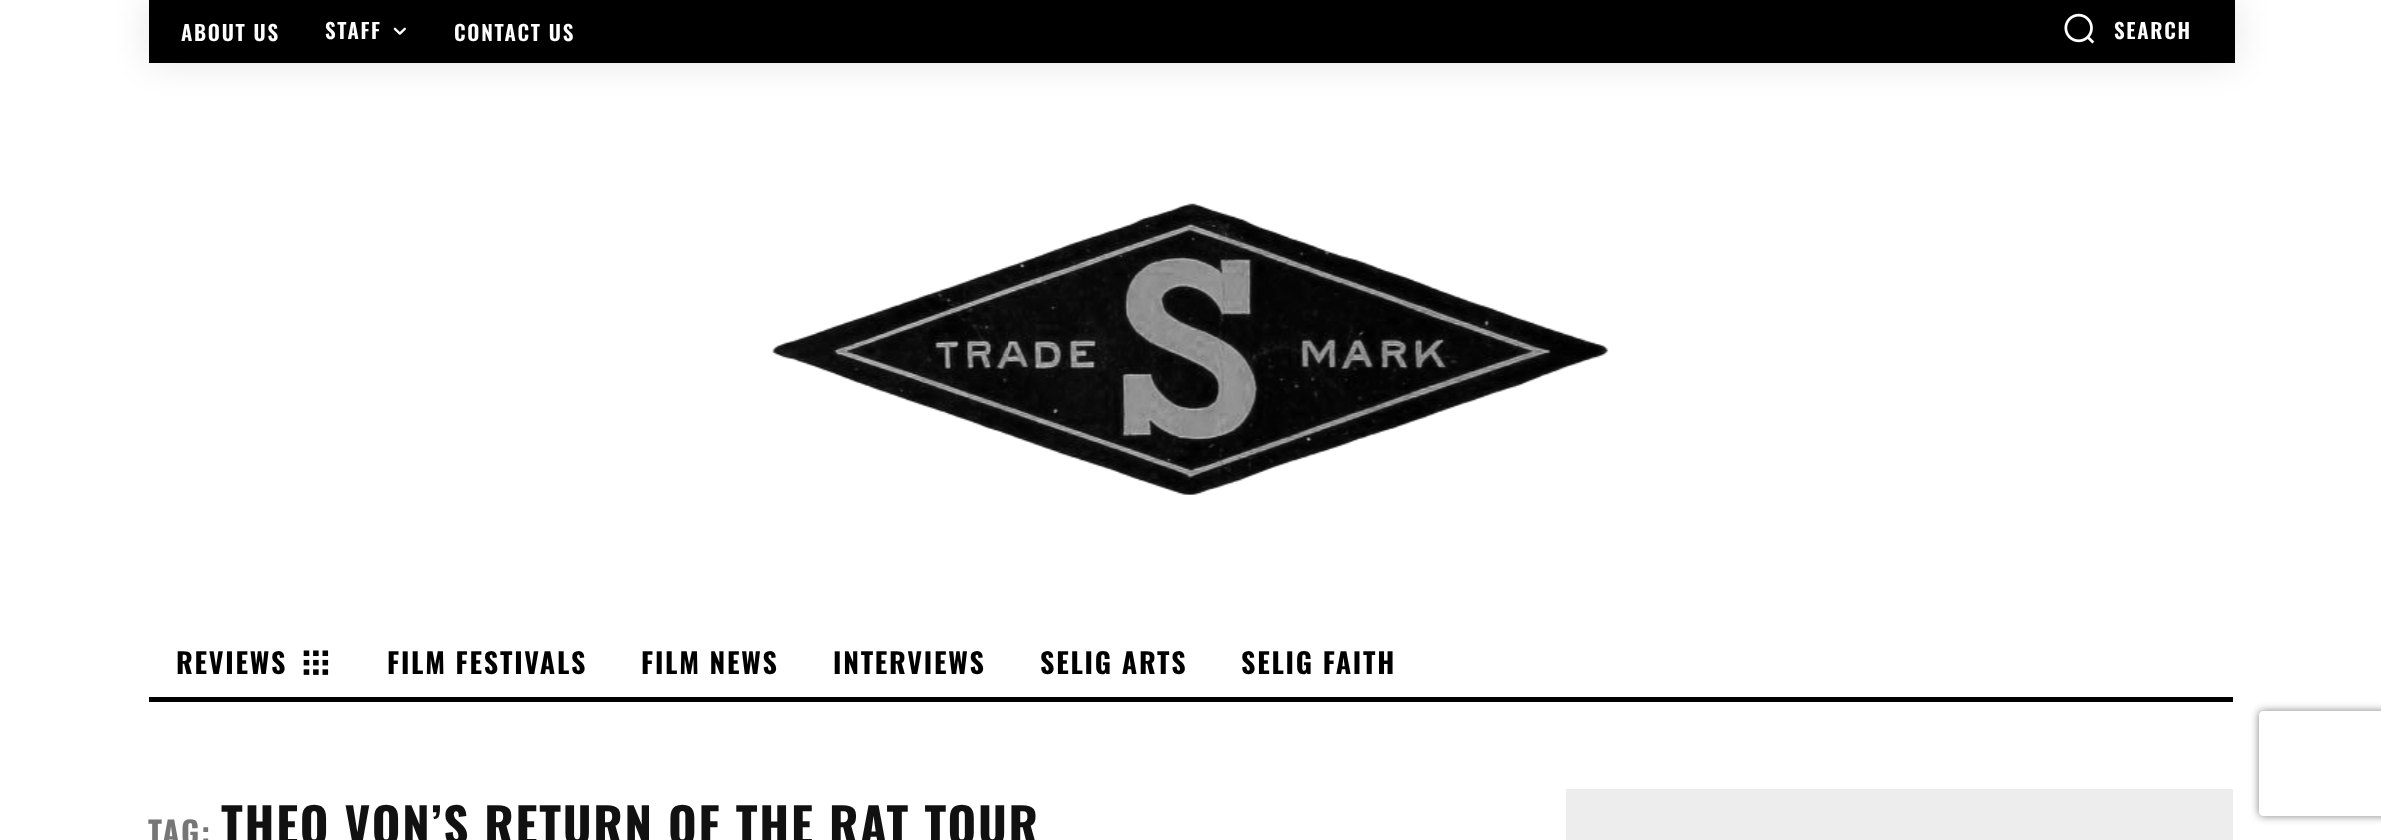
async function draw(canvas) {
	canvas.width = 2381;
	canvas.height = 840;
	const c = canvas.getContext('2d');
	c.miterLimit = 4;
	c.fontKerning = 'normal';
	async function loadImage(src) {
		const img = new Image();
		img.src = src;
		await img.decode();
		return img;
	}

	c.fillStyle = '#fff';
	c.fillRect(0, 0, 2381, 840);
	c.fillStyle = '#0000001a';
	c.filter = 'blur(17.5px)';
	c.beginPath();
	c.rect(149, 0, 2086, 63);
	c.fill();
	c.filter = 'none';
	c.fillStyle = '#000';
	c.fillRect(149, 0, 2086, 63);
	c.letterSpacing = '1.75px';
	c.font = '600 21px Oswald';
	c.fillStyle = '#fff';
	c.fillText('ABOUT US', 181, 41);
	c.fillText('STAFF', 325, 39);
	c.drawImage(await loadImage('img1.png'), 393, 27, 13, 8);
	c.fillText('CONTACT US', 454, 41);
	c.drawImage(await loadImage('img2.png'), 2064, 13, 31, 31);
	c.fillText('SEARCH', 2114, 39);
	c.drawImage(await loadImage('img3.png'), 772, 203, 837, 292);
	c.font = 'bold 28px Oswald';
	c.fillStyle = '#000';
	c.fillText('REVIEWS', 176, 674);
	c.drawImage(await loadImage('img4.png'), 303, 650, 26, 25);
	for (const [text, x, y] of [
		['FILM FESTIVALS', 387, 674],
		['FILM NEWS', 641, 674],
		['INTERVIEWS', 833, 674],
		['SELIG ARTS', 1040, 674],
		['SELIG FAITH', 1241, 674],
	]) {
		c.fillText(text, x, y);
	}
	c.fillRect(149, 697, 2084, 5);
	c.font = 'bold 31.5px Oswald';
	c.fillStyle = '#767676';
	c.fillText('TAG:', 148, 845);
	c.font = 'bold 49px Oswald';
	c.fillStyle = '#111';
	c.fillText('THEO VON’S RETURN OF THE RAT TOUR', 221, 845);
	c.fillStyle = '#ededed';
	c.fillRect(1566, 789, 667, 51);
	c.save();
	c.beginPath();
	c.moveTo(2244, 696);
	c.lineTo(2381, 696);
	c.lineTo(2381, 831);
	c.lineTo(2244, 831);
	c.closePath();
	c.moveTo(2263, 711);
	c.lineTo(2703, 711);
	c.bezierCurveTo(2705, 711, 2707, 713, 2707, 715);
	c.lineTo(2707, 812);
	c.bezierCurveTo(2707, 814, 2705, 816, 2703, 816);
	c.lineTo(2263, 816);
	c.bezierCurveTo(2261, 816, 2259, 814, 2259, 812);
	c.lineTo(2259, 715);
	c.bezierCurveTo(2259, 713, 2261, 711, 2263, 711);
	c.closePath();
	c.clip('evenodd');
	c.fillStyle = '#808080';
	c.filter = 'blur(4.5px)';
	c.beginPath();
	c.roundRect(2259, 711, 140, 105, 4);
	c.fill();
	c.filter = 'none';
	c.restore();
}

draw(document.querySelector('canvas'));
